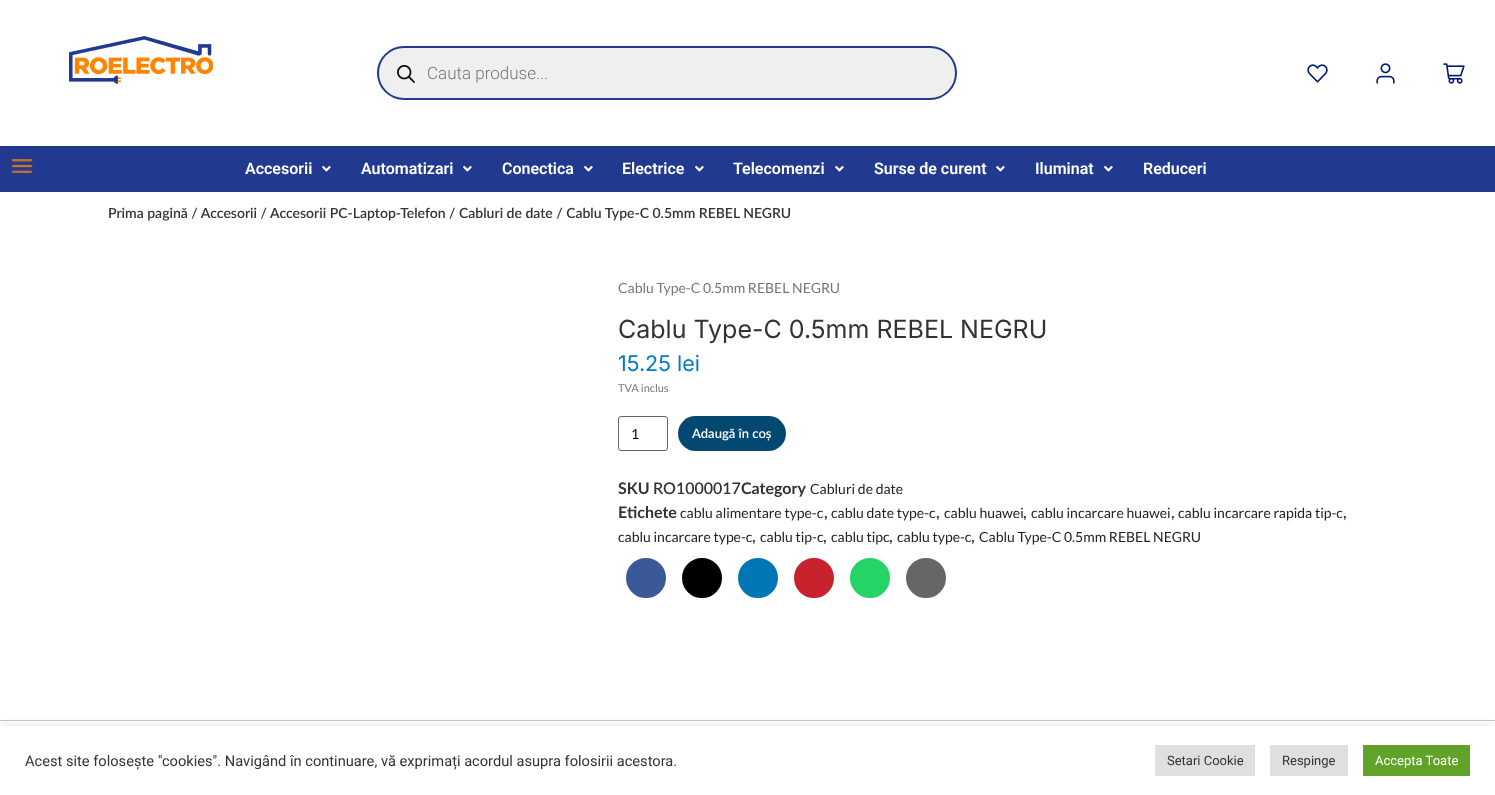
async function draw(canvas) {
	canvas.width = 1495;
	canvas.height = 795;
	const c = canvas.getContext('2d');
	c.miterLimit = 4;
	c.fontKerning = 'normal';
	async function loadImage(src) {
		const img = new Image();
		img.src = src;
		await img.decode();
		return img;
	}

	c.fillStyle = '#fff';
	c.fillRect(0, 0, 1495, 795);
	c.drawImage(await loadImage('img1.png'), 69, 36, 144, 48);
	c.fillStyle = '#efefef';
	c.beginPath();
	c.roundRect(378, 47, 578, 52, 26);
	c.fill();
	c.strokeStyle = '#21398f';
	c.lineWidth = 2;
	c.stroke();
	c.drawImage(await loadImage('img2.png'), 397, 65, 18, 18);
	c.font = '300 17px Roboto';
	c.fillStyle = '#777';
	c.fillText('Cauta produse...', 427, 79);
	c.drawImage(await loadImage('img3.png'), 1307, 64, 21, 19);
	c.drawImage(await loadImage('img4.png'), 1376, 63, 19, 21);
	c.drawImage(await loadImage('img5.png'), 1443, 63, 22, 21);
	c.fillStyle = '#21398f';
	c.fillRect(0, 146, 1495, 46);
	c.drawImage(await loadImage('img6.png'), 11, 159, 22, 14);
	c.font = '600 16px Roboto';
	c.fillStyle = '#fff';
	c.fillText('Accesorii', 245, 174);
	c.drawImage(await loadImage('img7.png'), 322, 166, 9, 6);
	c.fillText('Automatizari', 361, 174);
	c.drawImage(await loadImage('img7.png'), 463, 166, 9, 6);
	c.fillText('Conectica', 502, 174);
	c.drawImage(await loadImage('img7.png'), 584, 166, 9, 6);
	c.fillText('Electrice', 622, 174);
	c.drawImage(await loadImage('img7.png'), 695, 166, 9, 6);
	c.fillText('Telecomenzi', 733, 174);
	c.drawImage(await loadImage('img7.png'), 835, 166, 9, 6);
	c.fillText('Surse de curent', 874, 174);
	c.drawImage(await loadImage('img7.png'), 996, 166, 9, 6);
	c.fillText('Iluminat', 1035, 174);
	c.drawImage(await loadImage('img7.png'), 1104, 166, 9, 6);
	c.fillText('Reduceri', 1143, 174);
	c.font = '600 14px Lato';
	c.fillStyle = '#333';
	c.fillText('Prima pagină / Accesorii / Accesorii PC-Laptop-Telefon / Cabluri de date / Cablu Type-C 0.5mm REBEL NEGRU', 108, 218);
	c.font = '14px Lato';
	c.fillStyle = '#777';
	c.fillText('Cablu Type-C 0.5mm REBEL NEGRU', 618, 293);
	c.font = '25px Inter';
	c.fillStyle = '#333';
	c.fillText('Cablu Type-C 0.5mm REBEL NEGRU', 618, 338);
	c.font = '21.5px Inter';
	c.fillStyle = '#007bc4';
	c.fillText('15.25 lei', 618, 371);
	c.font = '11px Lato';
	c.fillStyle = '#777';
	c.fillText('TVA inclus', 618, 392);
	c.beginPath();
	c.roundRect(618.5, 416.5, 49, 34, 2.5);
	c.strokeStyle = '#666';
	c.lineWidth = 1;
	c.stroke();
	c.font = '14px Lato';
	c.fillStyle = '#000';
	c.fillText('1', 631, 439);
	c.fillStyle = '#024871';
	c.beginPath();
	c.roundRect(678, 416, 108, 35, 17.5);
	c.fill();
	c.font = '600 13px Lato';
	c.fillStyle = '#fff';
	c.fillText('Adaugă în coș', 692, 438);
	c.font = 'bold 16px Lato';
	c.fillStyle = '#333';
	c.fillText('SKU', 618, 494);
	c.font = '600 16px Lato';
	c.fillText('RO1000017', 653, 494);
	c.font = 'bold 16px Lato';
	c.fillText('Category', 741, 494);
	c.font = '14px Lato';
	c.fillStyle = '#222';
	c.fillText('Cabluri de date', 810, 494);
	c.font = 'bold 16px Lato';
	c.fillStyle = '#333';
	c.fillText('Etichete', 618, 518);
	c.font = '14px Lato';
	c.fillStyle = '#222';
	c.fillText('cablu alimentare type-c', 680, 518);
	c.font = '600 16px Lato';
	c.fillStyle = '#333';
	c.fillText(',', 824, 518);
	c.font = '14px Lato';
	c.fillStyle = '#222';
	c.fillText('cablu date type-c', 831, 518);
	c.font = '600 16px Lato';
	c.fillStyle = '#333';
	c.fillText(',', 936, 518);
	c.font = '14px Lato';
	c.fillStyle = '#222';
	c.fillText('cablu huawei', 944, 518);
	c.font = '600 16px Lato';
	c.fillStyle = '#333';
	c.fillText(',', 1023, 518);
	c.font = '14px Lato';
	c.fillStyle = '#222';
	c.fillText('cablu incarcare huawei', 1031, 518);
	c.font = '600 16px Lato';
	c.fillStyle = '#333';
	c.fillText(',', 1171, 518);
	c.font = '14px Lato';
	c.fillStyle = '#222';
	c.fillText('cablu incarcare rapida tip-c', 1178, 518);
	c.font = '600 16px Lato';
	c.fillStyle = '#333';
	c.fillText(',', 1343, 518);
	c.font = '14px Lato';
	c.fillStyle = '#222';
	c.fillText('cablu incarcare type-c', 618, 542);
	c.font = '600 16px Lato';
	c.fillStyle = '#333';
	c.fillText(',', 752, 542);
	c.font = '14px Lato';
	c.fillStyle = '#222';
	c.fillText('cablu tip-c', 760, 542);
	c.font = '600 16px Lato';
	c.fillStyle = '#333';
	c.fillText(',', 823, 542);
	c.font = '14px Lato';
	c.fillStyle = '#222';
	c.fillText('cablu tipc', 831, 542);
	c.font = '600 16px Lato';
	c.fillStyle = '#333';
	c.fillText(',', 889, 542);
	c.font = '14px Lato';
	c.fillStyle = '#222';
	c.fillText('cablu type-c', 897, 542);
	c.font = '600 16px Lato';
	c.fillStyle = '#333';
	c.fillText(',', 971, 542);
	c.font = '14px Lato';
	c.fillStyle = '#222';
	c.fillText('Cablu Type-C 0.5mm REBEL NEGRU', 979, 542);
	c.fillStyle = '#3b5998';
	c.beginPath();
	c.arc(646, 578, 19, 0, 2 * Math.PI);
	c.fill();
	c.strokeStyle = '#3b5998';
	c.lineWidth = 2;
	c.stroke();
	c.fillStyle = '#000';
	c.beginPath();
	c.arc(702, 578, 19, 0, 2 * Math.PI);
	c.fill();
	c.strokeStyle = '#000';
	c.stroke();
	c.fillStyle = '#0077b5';
	c.beginPath();
	c.arc(758, 578, 19, 0, 2 * Math.PI);
	c.fill();
	c.strokeStyle = '#0077b5';
	c.stroke();
	c.fillStyle = '#c8232c';
	c.beginPath();
	c.arc(814, 578, 19, 0, 2 * Math.PI);
	c.fill();
	c.strokeStyle = '#c8232c';
	c.stroke();
	c.fillStyle = '#25d366';
	c.beginPath();
	c.arc(870, 578, 19, 0, 2 * Math.PI);
	c.fill();
	c.strokeStyle = '#25d366';
	c.stroke();
	c.fillStyle = '#666';
	c.beginPath();
	c.arc(926, 578, 19, 0, 2 * Math.PI);
	c.fill();
	c.strokeStyle = '#666';
	c.stroke();
	c.fillStyle = '#c5c5c5';
	c.fillRect(0, 720, 1495, 1);
	c.fillStyle = '#acabab4d';
	c.filter = 'blur(5px)';
	c.beginPath();
	c.rect(0, 725, 1495, 69);
	c.fill();
	c.filter = 'none';
	c.fillStyle = '#fff';
	c.fillRect(0, 726, 1495, 69);
	c.font = '14.65px Roboto';
	c.fillStyle = '#333';
	c.fillText('Acest site folosește "cookies". Navigând în continuare, vă exprimați acordul asupra folosirii acestora.', 25, 766);
	c.fillStyle = '#dedfe0';
	c.fillRect(1155, 745, 100, 31);
	c.font = '13px Roboto';
	c.fillStyle = '#333';
	c.fillText('Setari Cookie', 1167, 765);
	c.fillStyle = '#dedfe0';
	c.fillRect(1270, 745, 78, 31);
	c.fillStyle = '#333';
	c.fillText('Respinge', 1282, 765);
	c.fillStyle = '#61a229';
	c.fillRect(1363, 745, 107, 31);
	c.fillStyle = '#fff';
	c.fillText('Accepta Toate', 1375, 765);
}

draw(document.querySelector('canvas'));
